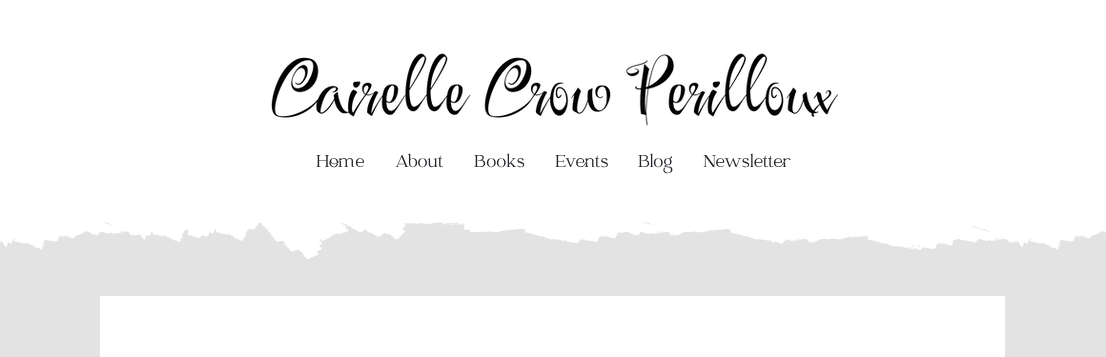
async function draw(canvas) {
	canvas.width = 1106;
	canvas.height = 357;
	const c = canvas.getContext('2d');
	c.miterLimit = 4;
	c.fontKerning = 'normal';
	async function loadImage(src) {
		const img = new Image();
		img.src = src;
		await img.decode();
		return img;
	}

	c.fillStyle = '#fff';
	c.fillRect(0, 0, 1106, 357);
	c.drawImage(await loadImage('img1.png'), 271, 52, 568, 74);
	c.font = '19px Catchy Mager';
	c.fillStyle = '#222429';
	for (const [text, x, y] of [
		['Home', 316, 167],
		['About', 395, 167],
		['Books', 474, 167],
		['Events', 555, 167],
		['Blog', 638, 167],
		['Newsletter', 703, 167],
	]) {
		c.fillText(text, x, y);
	}
	c.fillStyle = '#e3e3e3';
	c.fillRect(0, 222, 1106, 135);
	c.drawImage(await loadImage('img2.png'), 0, 209, 1106, 50);
	c.fillStyle = '#fff';
	c.fillRect(100, 296, 905, 61);
}

draw(document.querySelector('canvas'));
